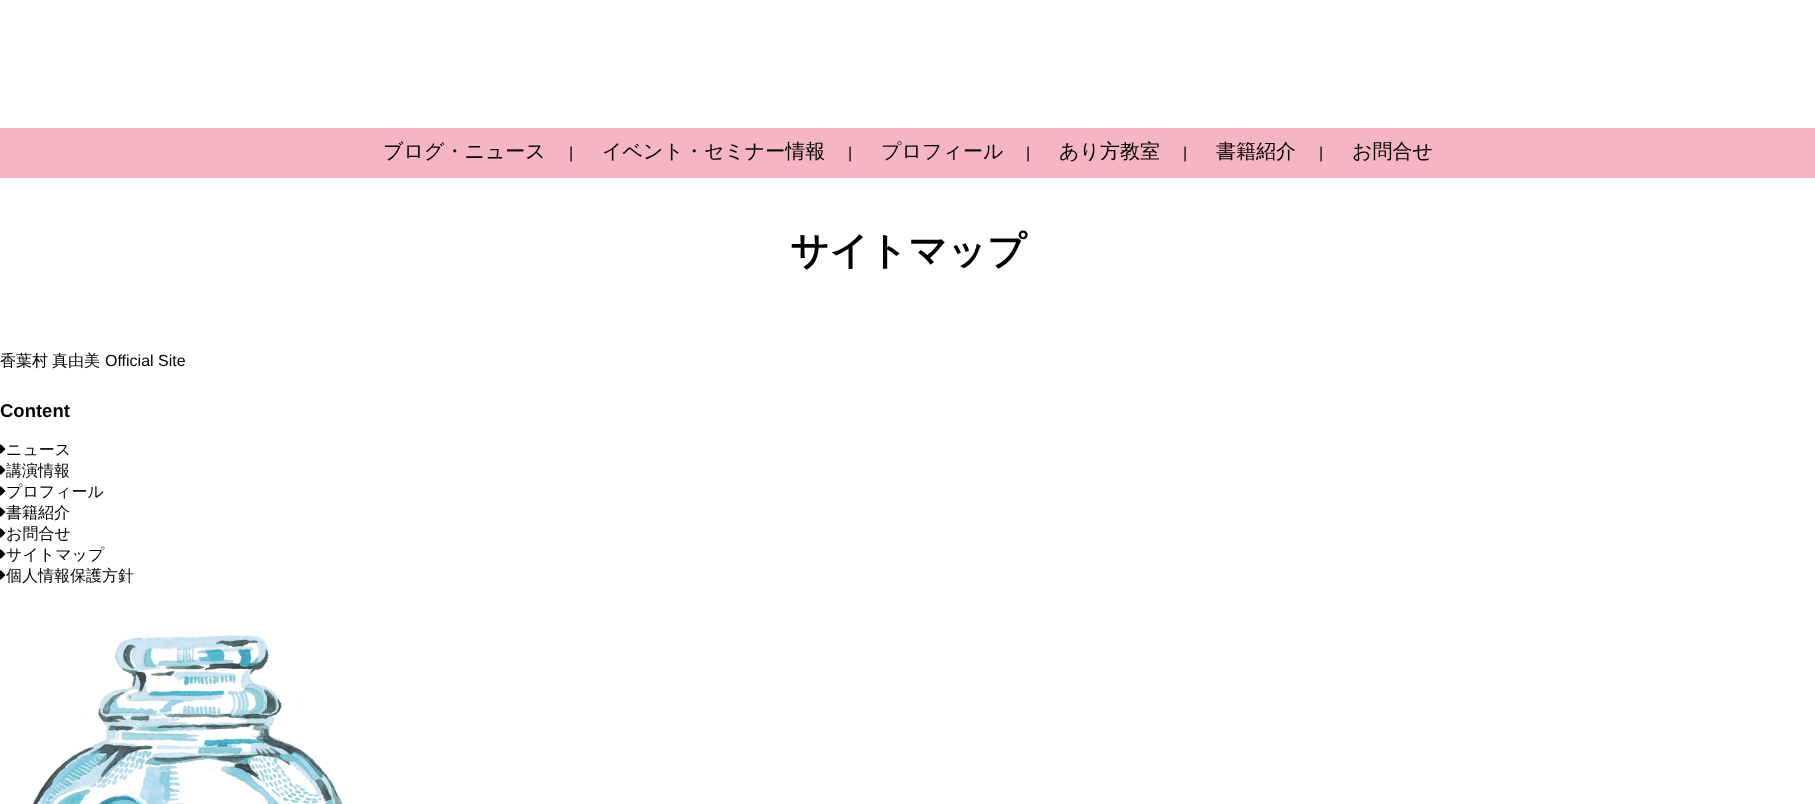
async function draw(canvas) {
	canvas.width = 1815;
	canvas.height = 804;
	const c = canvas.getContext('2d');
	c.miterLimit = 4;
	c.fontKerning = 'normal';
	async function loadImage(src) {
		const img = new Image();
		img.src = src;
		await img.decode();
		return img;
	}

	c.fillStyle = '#fff';
	c.fillRect(0, 0, 1815, 804);
	c.fillStyle = '#f5b5c5';
	c.fillRect(0, 128, 1815, 50);
	c.font = '500 20px WenQuanYi Zen Hei';
	c.fillStyle = '#000';
	c.fillText('ブログ・ニュース', 383, 158);
	c.font = '16px Liberation Sans';
	c.fillText('|', 569, 158);
	c.font = '500 20px WenQuanYi Zen Hei';
	c.fillText('イベント・セミナー情報', 602, 158);
	c.font = '16px Liberation Sans';
	c.fillText('|', 848, 158);
	c.font = '500 20px WenQuanYi Zen Hei';
	c.fillText('プロフィール', 881, 158);
	c.font = '16px Liberation Sans';
	c.fillText('|', 1026, 158);
	c.font = '500 20px WenQuanYi Zen Hei';
	c.fillText('あり方教室', 1059, 158);
	c.font = '16px Liberation Sans';
	c.fillText('|', 1183, 158);
	c.font = '500 20px WenQuanYi Zen Hei';
	c.fillText('書籍紹介', 1216, 158);
	c.font = '16px Liberation Sans';
	c.fillText('|', 1319, 158);
	c.font = '500 20px WenQuanYi Zen Hei';
	c.fillText('お問合せ', 1352, 158);
	c.font = 'bold 38.5px WenQuanYi Zen Hei';
	c.fillText('サイトマップ', 790, 264);
	c.font = '500 16px WenQuanYi Zen Hei';
	c.fillText('香葉村', 0, 366);
	c.fillText('真由美', 52, 366);
	c.font = '16px Liberation Sans';
	c.fillText('Official Site', 105, 366);
	c.font = 'bold 18.5px Liberation Sans';
	c.fillText('Content', 0, 417);
	c.drawImage(await loadImage('img1.png'), 0, 444, 6, 10);
	c.font = '500 16px WenQuanYi Zen Hei';
	c.fillText('ニュース', 6, 455);
	c.drawImage(await loadImage('img1.png'), 0, 465, 6, 10);
	c.fillText('講演情報', 6, 476);
	c.drawImage(await loadImage('img1.png'), 0, 486, 6, 10);
	c.fillText('プロフィール', 6, 497);
	c.drawImage(await loadImage('img1.png'), 0, 507, 6, 10);
	c.fillText('書籍紹介', 6, 518);
	c.drawImage(await loadImage('img1.png'), 0, 528, 6, 10);
	c.fillText('お問合せ', 6, 539);
	c.drawImage(await loadImage('img1.png'), 0, 549, 6, 10);
	c.fillText('サイトマップ', 6, 560);
	c.drawImage(await loadImage('img1.png'), 0, 570, 6, 10);
	c.fillText('個人情報保護方針', 6, 581);
	c.drawImage(await loadImage('img2.png'), 32, 635, 311, 169);
}

draw(document.querySelector('canvas'));
